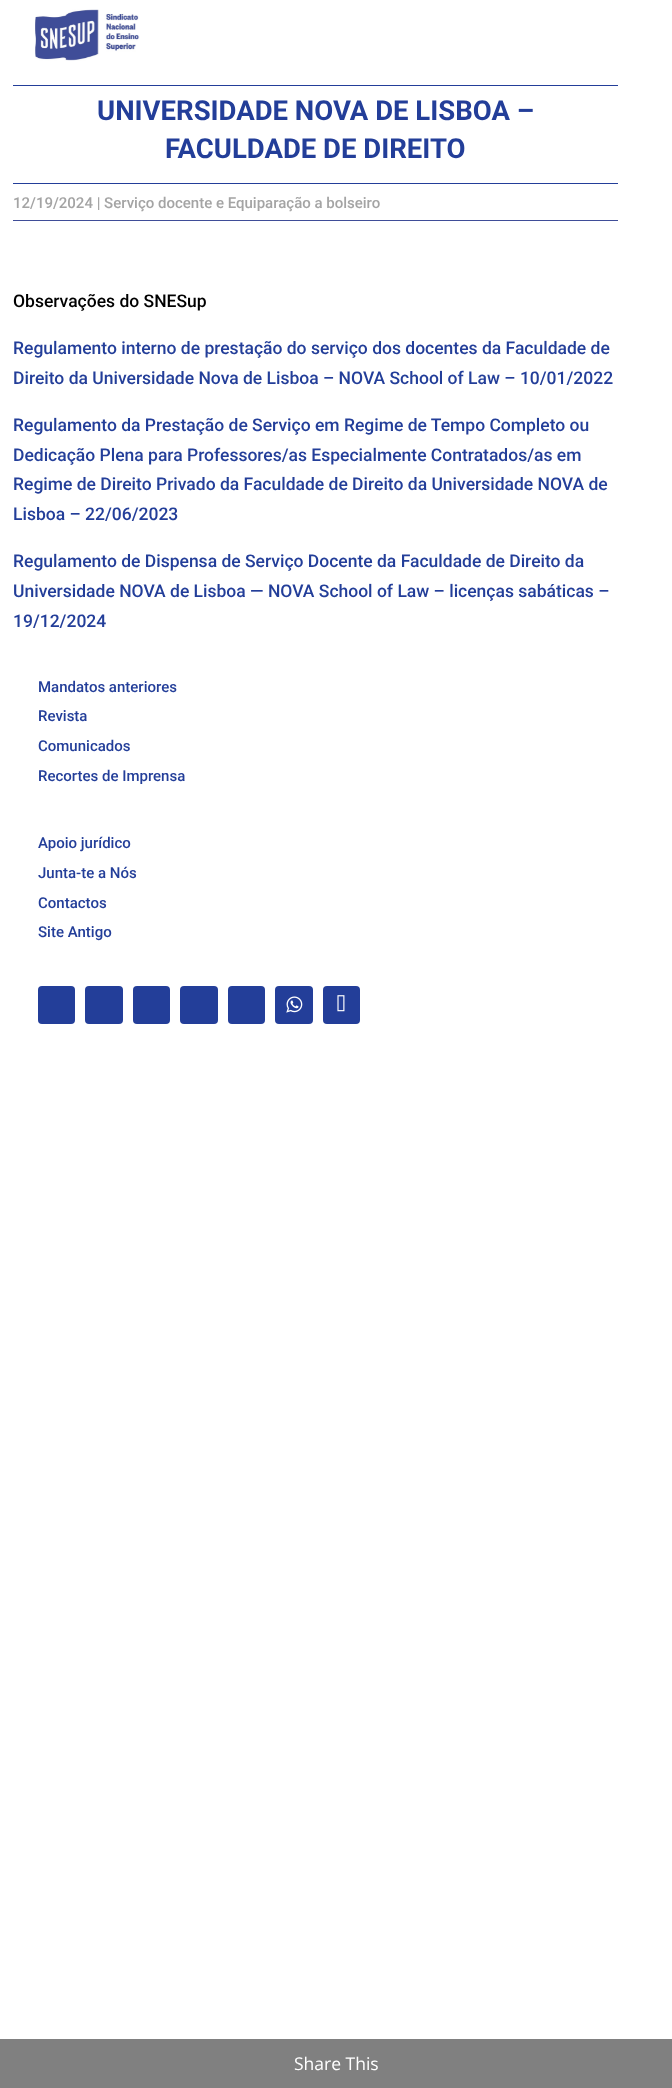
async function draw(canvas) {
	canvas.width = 672;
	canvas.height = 2088;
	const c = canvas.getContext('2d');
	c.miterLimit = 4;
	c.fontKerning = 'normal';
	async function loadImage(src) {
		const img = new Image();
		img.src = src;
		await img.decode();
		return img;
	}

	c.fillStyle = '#fff';
	c.fillRect(0, 0, 672, 2088);
	c.drawImage(await loadImage('img1.png'), 35, 9, 105, 52);
	c.fillStyle = '#233e99';
	c.fillRect(13, 85, 605, 1);
	c.font = 'bold 27.5px Roboto';
	c.fillText('UNIVERSIDADE NOVA DE LISBOA –', 97, 120);
	c.fillText('FACULDADE DE DIREITO', 165, 158);
	c.fillRect(13, 183, 605, 1);
	c.font = '500 15px Roboto';
	c.fillStyle = '#a4a4a4';
	c.fillText('12/19/2024 | Serviço docente e Equiparação a bolseiro', 13, 208);
	c.fillStyle = '#3f4d98';
	c.fillRect(13, 220, 605, 1);
	c.font = '500 17.5px Roboto';
	c.fillStyle = '#000';
	c.fillText('Observações do SNESup', 13, 307);
	c.fillStyle = '#233e99';
	for (const [text, x, y] of [
		['Regulamento interno de prestação do serviço dos docentes da Faculdade de', 13, 354],
		['Direito da Universidade Nova de Lisboa – NOVA School of Law – 10/01/2022', 13, 384],
		['Regulamento da Prestação de Serviço em Regime de Tempo Completo ou', 13, 431],
		['Dedicação Plena para Professores/as Especialmente Contratados/as em', 13, 461],
		['Regime de Direito Privado da Faculdade de Direito da Universidade NOVA de', 13, 490],
		['Lisboa – 22/06/2023', 13, 520],
		['Regulamento de Dispensa de Serviço Docente da Faculdade de Direito da', 13, 567],
		['Universidade NOVA de Lisboa ― NOVA School of Law – licenças sabáticas –', 13, 597],
		['19/12/2024', 13, 627],
	]) {
		c.fillText(text, x, y);
	}
	c.font = '500 15px Roboto';
	for (const [text, x, y] of [
		['Mandatos anteriores', 38, 692],
		['Revista', 38, 721],
		['Comunicados', 38, 751],
		['Recortes de Imprensa', 38, 781],
		['Apoio jurídico', 38, 848],
		['Junta-te a Nós', 38, 878],
		['Contactos', 38, 908],
		['Site Antigo', 38, 937],
	]) {
		c.fillText(text, x, y);
	}
	c.beginPath();
	c.roundRect(38, 986, 37, 38, 4);
	c.fill();
	c.beginPath();
	c.roundRect(85, 986, 38, 38, 4);
	c.fill();
	c.beginPath();
	c.roundRect(133, 986, 37, 38, 4);
	c.fill();
	c.beginPath();
	c.roundRect(180, 986, 38, 38, 4);
	c.fill();
	c.beginPath();
	c.roundRect(228, 986, 37, 38, 4);
	c.fill();
	c.beginPath();
	c.roundRect(275, 986, 38, 38, 4);
	c.fill();
	c.drawImage(await loadImage('img2.png'), 286, 996, 17, 17);
	c.beginPath();
	c.roundRect(323, 986, 37, 38, 4);
	c.fill();
	c.drawImage(await loadImage('img3.png'), 337, 995, 8, 17);
	c.fillStyle = '#808080';
	c.fillRect(0, 2039, 672, 49);
	c.font = '17.5px Open Sans';
	c.fillStyle = '#fff';
	c.fillText('Share This', 294, 2070);
}

draw(document.querySelector('canvas'));
